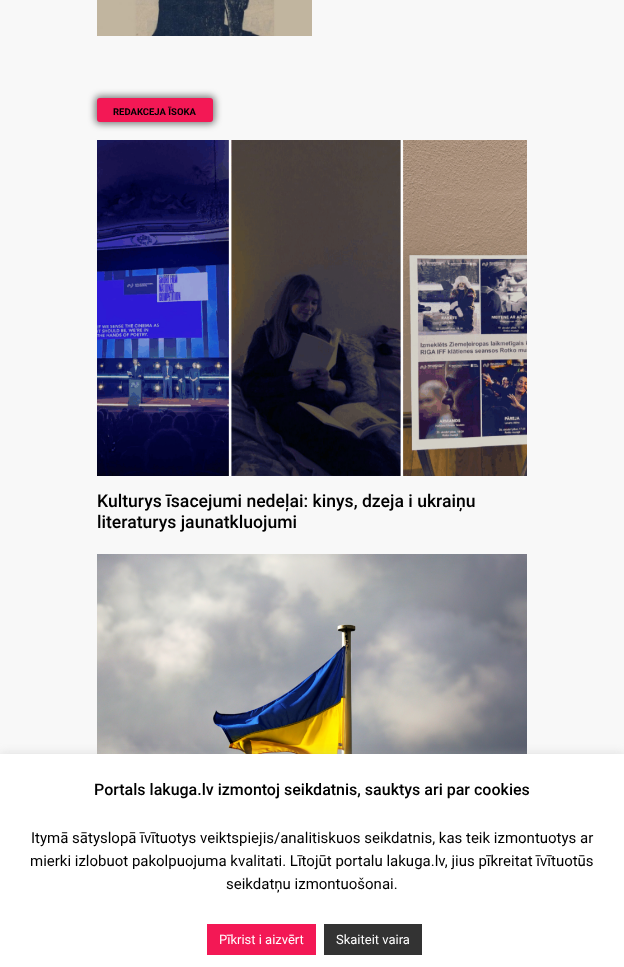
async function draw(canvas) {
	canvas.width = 624;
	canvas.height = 967;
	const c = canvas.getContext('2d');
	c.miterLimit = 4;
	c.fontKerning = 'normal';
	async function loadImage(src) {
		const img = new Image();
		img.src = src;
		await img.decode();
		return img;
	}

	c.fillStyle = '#f8f8f8';
	c.fillRect(0, 0, 624, 967);
	c.drawImage(await loadImage('img1.png'), 97, 0, 215, 36);
	c.fillStyle = '#00000080';
	c.filter = 'blur(3.5px)';
	c.beginPath();
	c.roundRect(95, 96, 120, 28, 5);
	c.fill();
	c.filter = 'none';
	c.fillStyle = '#f31855';
	c.beginPath();
	c.roundRect(97, 98, 116, 24, 3);
	c.fill();
	c.font = 'bold 9.5px Roboto';
	c.fillStyle = '#000';
	c.fillText('REDAKCEJA ĪSOKA', 113, 115);
	c.drawImage(await loadImage('img2.png'), 97, 140, 430, 336);
	c.font = '500 17.6px Roboto';
	c.fillText('Kulturys īsacejumi nedeļai: kinys, dzeja i ukraiņu', 97, 507);
	c.fillText('literaturys jaunatkluojumi', 97, 528);
	c.drawImage(await loadImage('img3.png'), 97, 554, 430, 200);
	c.fillStyle = '#acabab4d';
	c.filter = 'blur(5px)';
	c.beginPath();
	c.rect(0, 753, 624, 213);
	c.fill();
	c.filter = 'none';
	c.fillStyle = '#fff';
	c.fillRect(0, 754, 624, 213);
	c.font = '500 16px Roboto';
	c.fillStyle = '#000';
	c.fillText('Portals lakuga.lv izmontoj seikdatnis, sauktys ari par cookies', 94, 795);
	c.font = '15px Roboto';
	for (const [text, x, y] of [
		['Itymā sātyslopā īvītuotys veiktspiejis/analitiskuos seikdatnis, kas teik izmontuotys ar', 31, 843],
		['mierki izlobuot pakolpuojuma kvalitati. Lītojūt portalu lakuga.lv, jius pīkreitat īvītuotūs', 30, 866],
		['seikdatņu izmontuošonai.', 226, 889],
	]) {
		c.fillText(text, x, y);
	}
	c.fillStyle = '#f31855';
	c.fillRect(207, 924, 109, 31);
	c.font = '13px Roboto';
	c.fillStyle = '#fff';
	c.fillText('Pīkrist i aizvērt', 219, 944);
	c.fillStyle = '#333';
	c.fillRect(324, 924, 98, 31);
	c.fillStyle = '#fff';
	c.fillText('Skaiteit vaira', 336, 944);
}

draw(document.querySelector('canvas'));
